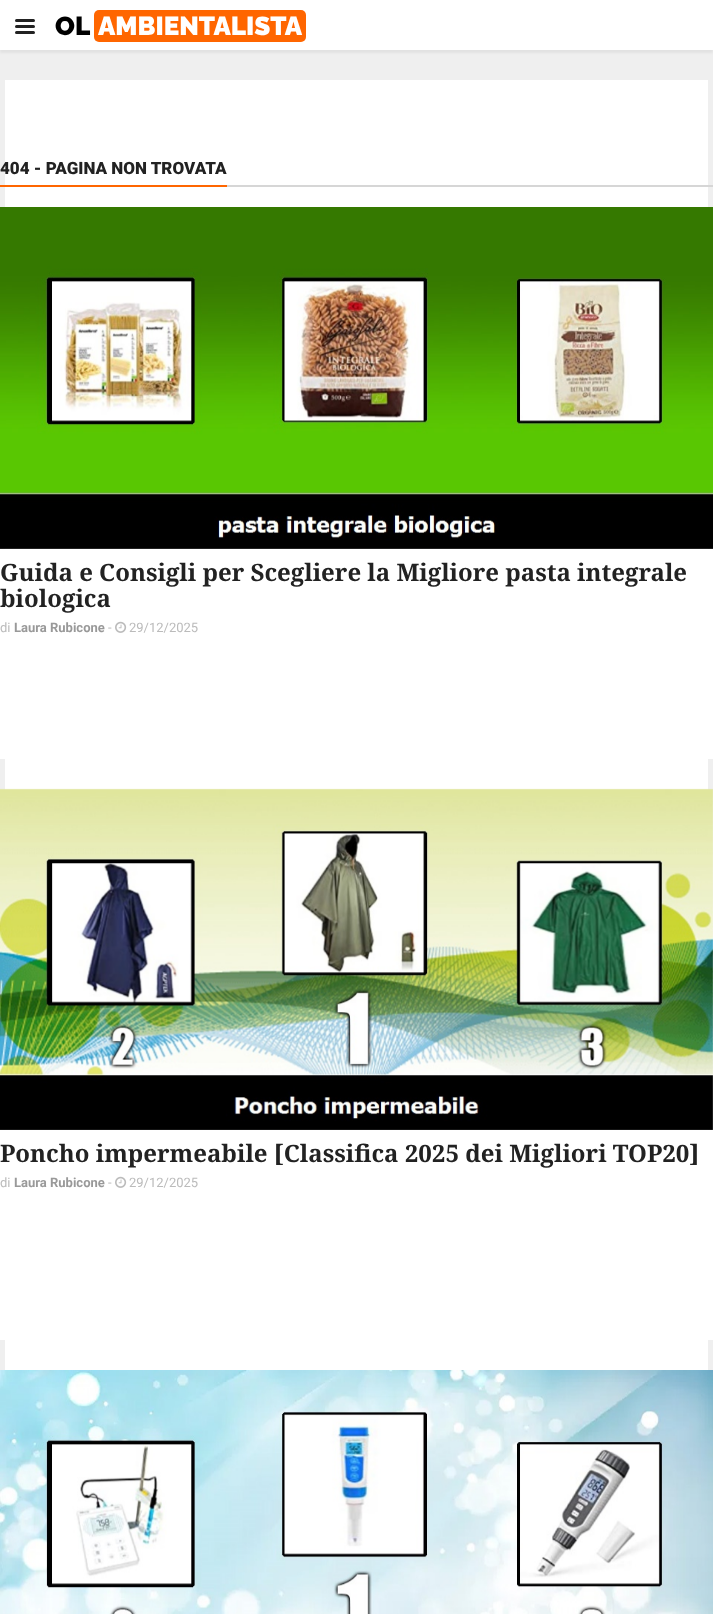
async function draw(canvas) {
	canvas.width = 713;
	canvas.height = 1614;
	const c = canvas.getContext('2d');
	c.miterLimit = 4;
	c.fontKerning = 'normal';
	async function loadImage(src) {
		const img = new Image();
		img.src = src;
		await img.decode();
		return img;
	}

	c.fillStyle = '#efefef';
	c.fillRect(0, 0, 713, 1614);
	c.fillStyle = '#0000000d';
	c.filter = 'blur(1px)';
	c.beginPath();
	c.rect(0, 3, 713, 50);
	c.fill();
	c.filter = 'none';
	c.fillStyle = '#fff';
	c.fillRect(0, 0, 713, 50);
	c.fillStyle = '#222';
	c.beginPath();
	c.roundRect(15, 19, 20, 3, 1.5);
	c.fill();
	c.beginPath();
	c.roundRect(15, 25, 20, 3, 1.5);
	c.fill();
	c.beginPath();
	c.roundRect(15, 31, 20, 3, 1.5);
	c.fill();
	c.font = '100 26px Raleway';
	c.fillStyle = '#000';
	c.fillText('OL', 55, 35);
	c.fillStyle = '#f60';
	c.beginPath();
	c.roundRect(94, 10, 212, 32, 5);
	c.fill();
	c.fillStyle = '#fff';
	c.fillText('AMBIENTALISTA', 98, 35);
	for (const [x, y, w, h, color] of [
		[5, 80, 703, 1290, '#fff'],
		[227, 185, 486, 2, '#d6d6d6'],
		[0, 185, 227, 2, '#f60'],
	]) {
		c.fillStyle = color;
		c.fillRect(x, y, w, h);
	}
	c.font = '900 17px Roboto';
	c.fillStyle = '#222';
	c.fillText('404 - PAGINA NON TROVATA', 0, 174);
	c.drawImage(await loadImage('img1.png'), 0, 207, 713, 342);
	c.fillStyle = '#fff';
	c.fillRect(0, 549, 713, 210);
	c.font = 'bold 24px Noto Serif';
	c.fillStyle = '#222';
	c.fillText('Guida e Consigli per Scegliere la Migliore pasta integrale', 0, 581);
	c.fillText('biologica', 0, 607);
	c.font = '13px Roboto';
	c.fillStyle = '#bbb';
	c.fillText('di', 0, 632);
	c.font = 'bold 13px Roboto';
	c.fillStyle = '#999';
	c.fillText('Laura Rubicone', 14, 632);
	c.font = '13px Roboto';
	c.fillStyle = '#bbb';
	c.fillText('-', 108, 632);
	c.drawImage(await loadImage('img2.png'), 115, 621, 12, 12);
	c.fillText('29/12/2025', 129, 632);
	c.drawImage(await loadImage('img3.png'), 0, 788, 713, 342);
	c.fillStyle = '#fff';
	c.fillRect(0, 1130, 713, 210);
	c.font = 'bold 24px Noto Serif';
	c.fillStyle = '#222';
	c.fillText('Poncho impermeabile [Classifica 2025 dei Migliori TOP20]', 0, 1162);
	c.font = '13px Roboto';
	c.fillStyle = '#bbb';
	c.fillText('di', 0, 1187);
	c.font = 'bold 13px Roboto';
	c.fillStyle = '#999';
	c.fillText('Laura Rubicone', 14, 1187);
	c.font = '13px Roboto';
	c.fillStyle = '#bbb';
	c.fillText('-', 108, 1187);
	c.drawImage(await loadImage('img2.png'), 115, 1176, 12, 12);
	c.fillText('29/12/2025', 129, 1187);
	c.drawImage(await loadImage('img4.png'), 0, 1370, 713, 244);
}

draw(document.querySelector('canvas'));
